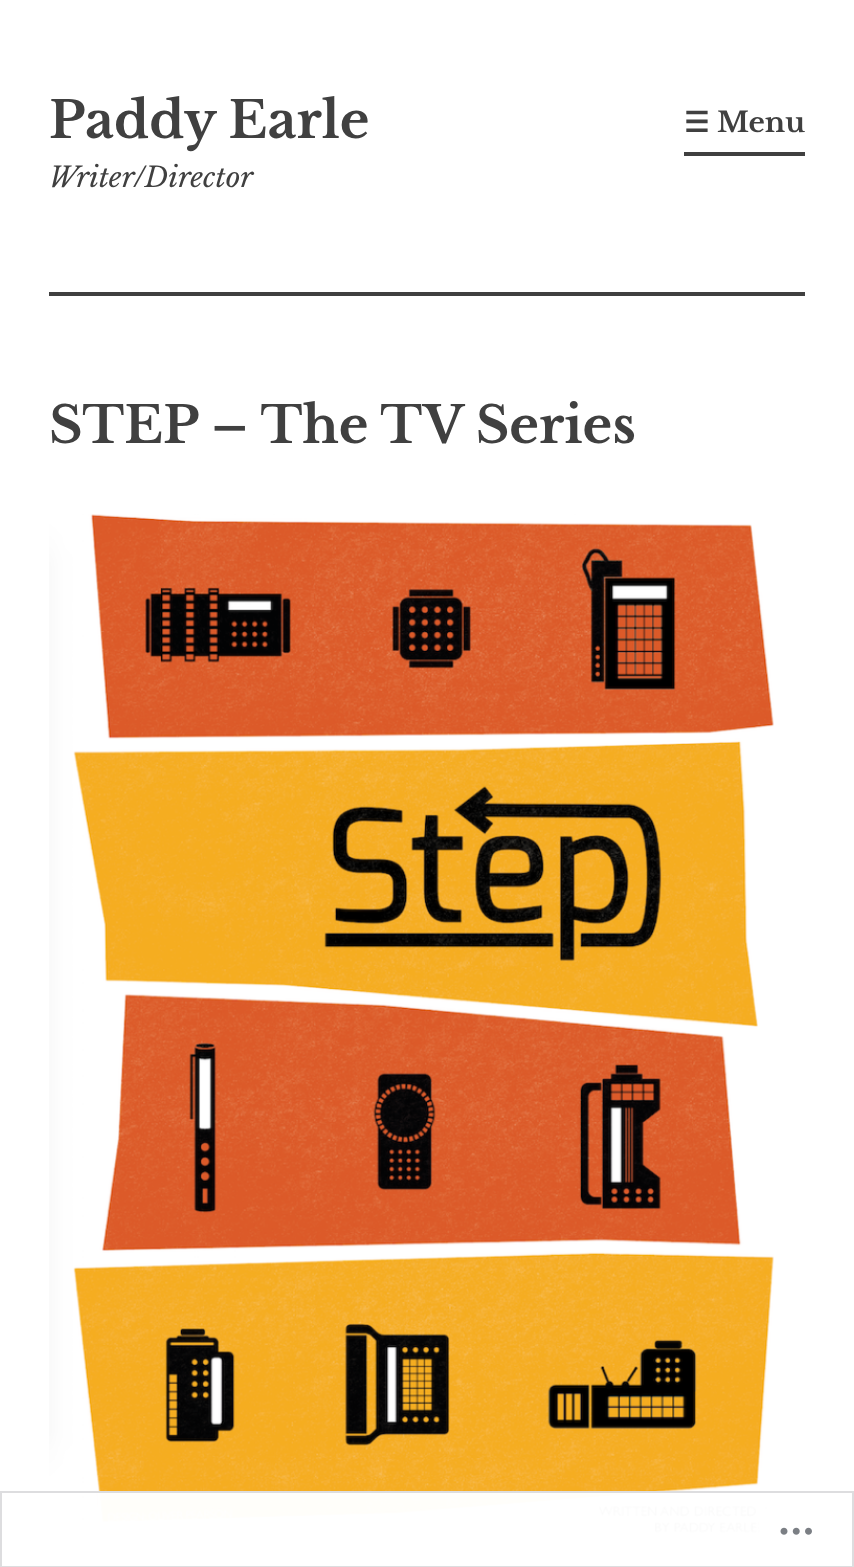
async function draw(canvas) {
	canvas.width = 854;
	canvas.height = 1567;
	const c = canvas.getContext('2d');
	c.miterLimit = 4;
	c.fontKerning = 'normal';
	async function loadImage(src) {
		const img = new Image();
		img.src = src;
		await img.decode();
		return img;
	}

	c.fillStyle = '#fff';
	c.fillRect(0, 0, 854, 1567);
	c.font = 'bold 50.75px Libre Baskerville';
	c.fillStyle = '#404040';
	c.fillText('Paddy Earle', 49, 138);
	c.font = 'italic 28px Libre Baskerville';
	c.fillText('Writer/Director', 49, 187);
	c.fillRect(49, 292, 756, 4);
	c.beginPath();
	c.moveTo(684, 95);
	c.lineTo(684, 156);
	c.lineTo(805, 156);
	c.lineTo(805, 152);
	c.lineTo(684, 152);
	c.closePath();
	c.fill();
	c.font = 'bold 28px DejaVu Sans';
	c.fillText('☰', 684, 132);
	c.font = 'bold 28px Libre Baskerville';
	c.fillText('Menu', 717, 132);
	c.font = 'bold 50.75px Libre Baskerville';
	c.fillText('STEP – The TV Series', 49, 443);
	c.drawImage(await loadImage('img1.png'), 49, 514, 725, 1019);
	c.fillStyle = '#fffffffa';
	c.fillRect(98, 1491, 660, 42);
	c.strokeStyle = '#dcdcdefa';
	c.lineWidth = 2;
	c.strokeRect(1, 1492, 852, 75);
	c.drawImage(await loadImage('img2.png'), 780, 1527, 32, 8);
}

draw(document.querySelector('canvas'));
